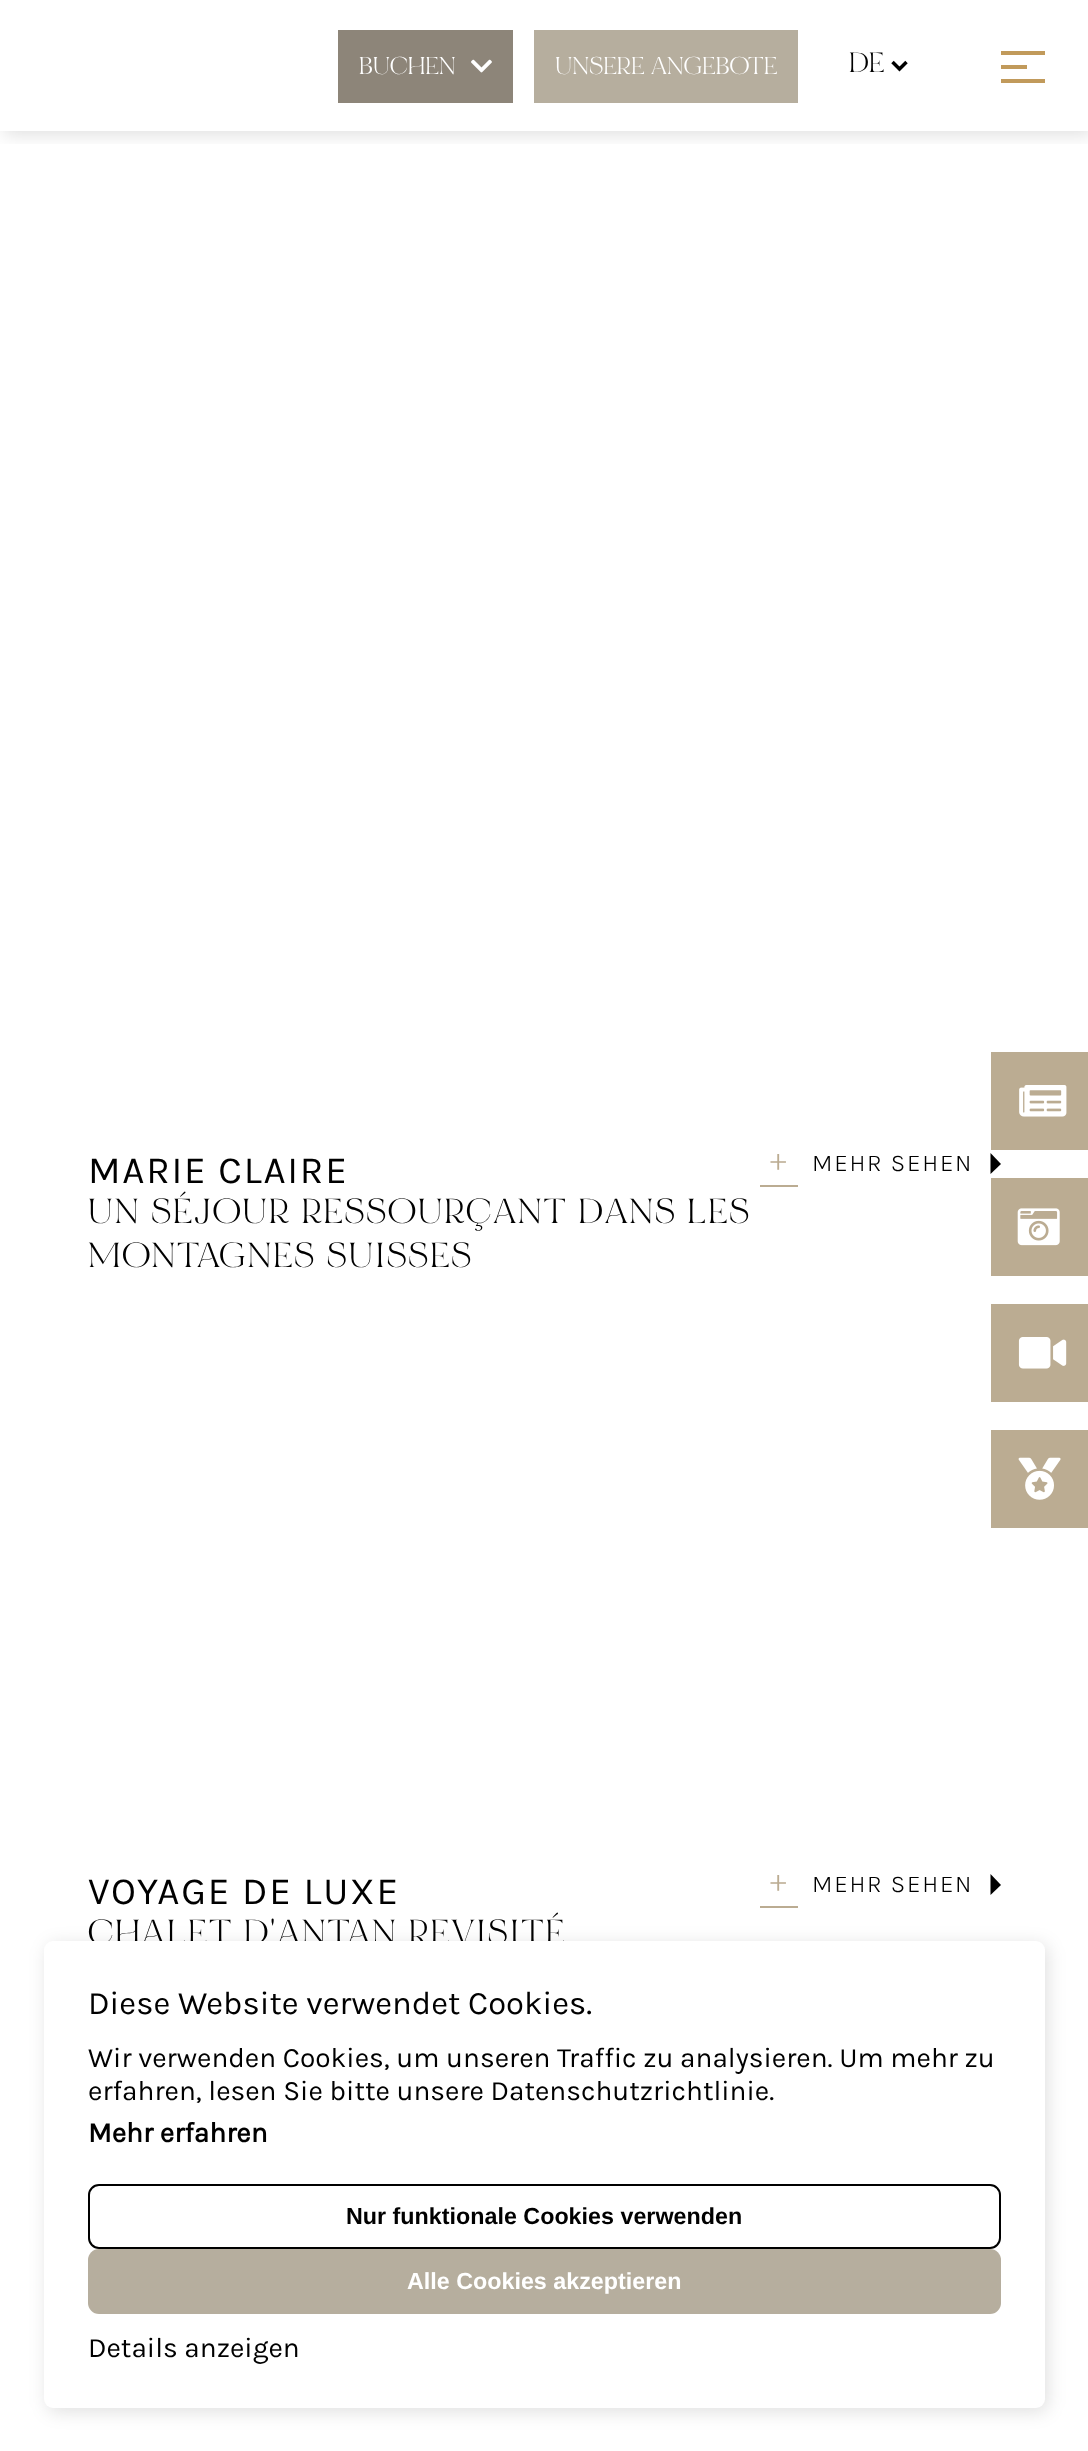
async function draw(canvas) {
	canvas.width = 1088;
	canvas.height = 2451;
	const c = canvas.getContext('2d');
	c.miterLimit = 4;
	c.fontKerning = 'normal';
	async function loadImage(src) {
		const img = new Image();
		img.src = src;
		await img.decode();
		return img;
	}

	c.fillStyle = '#fff';
	c.fillRect(0, 0, 1088, 2451);
	c.save();
	c.beginPath();
	c.rect(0, 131, 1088, 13);
	c.clip();
	c.fillStyle = '#0000001f';
	c.filter = 'blur(9px)';
	c.beginPath();
	c.rect(4, 4, 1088, 131);
	c.fill();
	c.filter = 'none';
	c.restore();
	c.fillStyle = '#8d8579';
	c.fillRect(338, 30, 175, 73);
	c.font = '24.5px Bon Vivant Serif';
	c.fillStyle = '#fff';
	c.fillText('BUCHEN', 359, 74);
	c.drawImage(await loadImage('img1.png'), 471, 59, 21, 14);
	c.fillStyle = '#b6ae9e';
	c.fillRect(534, 30, 264, 73);
	c.fillStyle = '#fff';
	c.fillText('UNSERE ANGEBOTE', 555, 74);
	c.beginPath();
	c.moveTo(892.5, 62);
	c.lineTo(899.5, 69);
	c.lineTo(906.5, 62);
	c.strokeStyle = '#000';
	c.lineWidth = 3.5;
	c.stroke();
	c.font = '28px Bon Vivant Serif';
	c.fillStyle = '#000';
	c.fillText('DE', 849, 72);
	for (const [x, y, w, h, color] of [
		[1001, 65, 26, 4, '#c19a5b'],
		[1001, 51, 44, 4, '#c19a5b'],
		[1001, 79, 44, 4, '#c19a5b'],
	]) {
		c.fillStyle = color;
		c.fillRect(x, y, w, h);
	}
	c.letterSpacing = '1.75px';
	c.font = '38.5px Karla';
	c.fillStyle = '#000';
	c.fillText('MARIE CLAIRE', 88, 1183);
	c.font = '35px Bon Vivant Serif';
	c.fillText('UN SÉJOUR RESSOURÇANT DANS LES', 88, 1223);
	c.fillText('MONTAGNES SUISSES', 88, 1267);
	c.fillStyle = '#bbac92';
	c.fillRect(760, 1185, 38, 2);
	c.font = '300 32px Karla';
	c.fillText('+', 770, 1170);
	c.font = '300 24.5px Karla';
	c.fillStyle = '#000';
	c.fillText('MEHR SEHEN', 812, 1171);
	c.beginPath();
	c.moveTo(990.5, 1174);
	c.lineTo(990.5, 1153);
	c.lineTo(1001, 1164);
	c.closePath();
	c.fill();
	c.font = '38.5px Karla';
	c.fillText('VOYAGE DE LUXE', 88, 1904);
	c.font = '35px Bon Vivant Serif';
	c.fillText('CHALET D\'ANTAN REVISITÉ', 88, 1944);
	c.fillStyle = '#bbac92';
	c.fillRect(760, 1906, 38, 2);
	c.font = '300 32px Karla';
	c.fillText('+', 770, 1891);
	c.font = '300 24.5px Karla';
	c.fillStyle = '#000';
	c.fillText('MEHR SEHEN', 812, 1892);
	c.beginPath();
	c.moveTo(990.5, 1895);
	c.lineTo(990.5, 1874);
	c.lineTo(1001, 1885);
	c.closePath();
	c.fill();
	c.fillStyle = '#bbac92';
	c.fillRect(991, 1052, 97, 98);
	c.drawImage(await loadImage('img2.png'), 1019, 1085, 48, 32);
	c.fillRect(991, 1178, 97, 98);
	c.drawImage(await loadImage('img3.png'), 1017, 1208, 43, 38);
	c.fillRect(991, 1304, 97, 98);
	c.drawImage(await loadImage('img4.png'), 1018, 1337, 49, 32);
	c.fillRect(991, 1430, 97, 98);
	c.drawImage(await loadImage('img5.png'), 1018, 1457, 43, 43);
	c.fillStyle = '#0000001f';
	c.filter = 'blur(9px)';
	c.beginPath();
	c.roundRect(47, 1944, 1001, 468, 9);
	c.fill();
	c.filter = 'none';
	c.fillStyle = '#fff';
	c.beginPath();
	c.roundRect(44, 1941, 1001, 467, 9);
	c.fill();
	c.letterSpacing = '0px';
	c.font = '32.75px Karla';
	c.fillStyle = '#000';
	c.fillText('Diese Website verwendet Cookies.', 88, 2014);
	c.font = '28px Karla';
	c.fillText('Wir verwenden Cookies, um unseren Traffic zu analysieren. Um mehr zu', 88, 2067);
	c.fillText('erfahren, lesen Sie bitte unsere Datenschutzrichtlinie.', 88, 2100);
	c.font = 'bold 28px Karla';
	c.fillText('Mehr erfahren', 88, 2142);
	c.beginPath();
	c.roundRect(89, 2185, 911, 63, 10);
	c.lineWidth = 2;
	c.stroke();
	c.font = 'bold 23.3px Liberation Sans';
	c.fillText('Nur funktionale Cookies verwenden', 346, 2224);
	c.fillStyle = '#b6ae9e';
	c.beginPath();
	c.roundRect(88, 2249, 913, 65, 11);
	c.fill();
	c.fillStyle = '#fff';
	c.fillText('Alle Cookies akzeptieren', 407, 2289);
	c.font = '28px Karla';
	c.fillStyle = '#000';
	c.fillText('Details anzeigen', 88, 2357);
}

draw(document.querySelector('canvas'));
